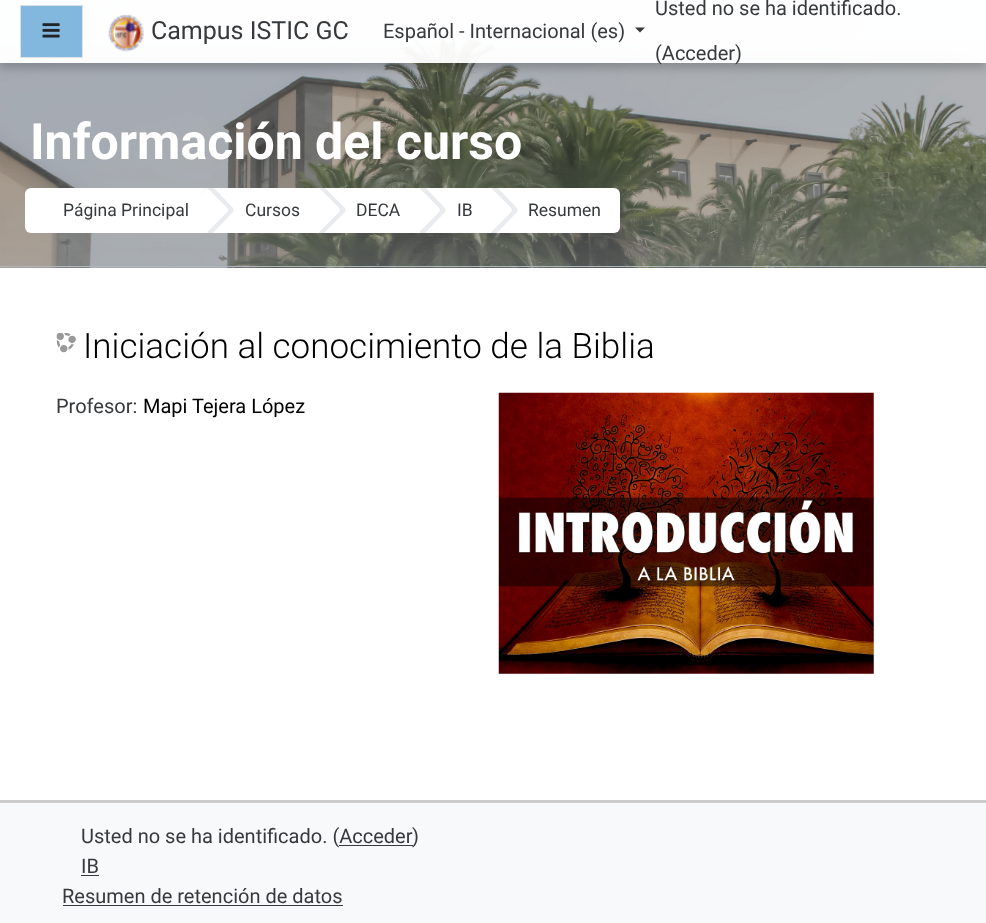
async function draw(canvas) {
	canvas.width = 986;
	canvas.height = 923;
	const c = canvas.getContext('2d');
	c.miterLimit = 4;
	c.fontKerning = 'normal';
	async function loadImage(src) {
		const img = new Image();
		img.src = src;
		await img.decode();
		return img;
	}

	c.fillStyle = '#e9ecef';
	c.fillRect(0, 0, 986, 923);
	c.drawImage(await loadImage('img1.png'), 0, 0, 986, 268);
	c.save();
	c.beginPath();
	c.rect(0, 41, 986, 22);
	c.clip();
	c.fillStyle = '#00000099';
	c.filter = 'blur(15.5px)';
	c.beginPath();
	c.rect(6, 69, 974, 725);
	c.fill();
	c.filter = 'none';
	c.restore();
	c.fillStyle = '#2125294d';
	c.fillRect(0, 63, 986, 205);
	c.save();
	c.beginPath();
	c.moveTo(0, 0);
	c.lineTo(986, 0);
	c.lineTo(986, 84);
	c.lineTo(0, 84);
	c.closePath();
	c.moveTo(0, 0);
	c.lineTo(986, 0);
	c.lineTo(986, 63);
	c.lineTo(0, 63);
	c.closePath();
	c.clip('evenodd');
	c.fillStyle = '#00000033';
	c.filter = 'blur(5px)';
	c.beginPath();
	c.rect(0, 5, 986, 63);
	c.fill();
	c.filter = 'none';
	c.restore();
	c.fillStyle = '#fffffff2';
	c.fillRect(0, 0, 986, 63);
	c.fillStyle = '#82b8de';
	c.beginPath();
	c.rect(20.5, 5.5, 62, 52);
	c.fill();
	c.strokeStyle = '#dee2e6';
	c.stroke();
	c.drawImage(await loadImage('img2.png'), 42, 23, 18, 15);
	c.drawImage(await loadImage('img3.png'), 108, 14, 36, 38);
	c.font = '25px Roboto';
	c.fillStyle = '#373a3c';
	c.fillText('Campus ISTIC GC', 151, 39);
	c.font = '20px Roboto';
	c.fillText('Español - Internacional (es)', 383, 38);
	c.beginPath();
	c.moveTo(635, 27.5);
	c.lineTo(645, 27.5);
	c.lineTo(640, 32.5);
	c.closePath();
	c.fill();
	c.fillText('Usted no se ha identificado.', 655, 15);
	c.fillText('(Acceder)', 655, 60);
	c.fillStyle = '#adb5bd';
	c.fillRect(0, 266, 986, 1);
	c.font = 'bold 50px Roboto';
	c.fillStyle = '#fff';
	c.fillText('Información del curso', 30, 159);
	c.beginPath();
	c.roundRect(25, 188, 183, 45, [6, 0, 0, 6]);
	c.fill();
	c.font = '17.5px Roboto';
	c.fillStyle = '#373a3c';
	c.fillText('Página Principal', 63, 216);
	c.fillStyle = '#fff';
	c.fillRect(208, 188, 283, 45);
	c.save();
	c.beginPath();
	c.rect(25, 188, 595, 45);
	c.clip();
	c.fillStyle = '#e9ecef';
	c.beginPath();
	c.moveTo(211, 185);
	c.lineTo(208, 188);
	c.lineTo(227, 208);
	c.bezierCurveTo(229, 209, 229, 211, 227, 212);
	c.lineTo(208, 232);
	c.lineTo(211, 235);
	c.lineTo(232, 213);
	c.bezierCurveTo(234, 212, 234, 208, 232, 207);
	c.closePath();
	c.fill();
	c.beginPath();
	c.moveTo(210, 185);
	c.bezierCurveTo(205, 187, 202, 193, 200, 198);
	c.bezierCurveTo(202, 194, 204, 190, 207, 188);
	c.lineTo(227, 208);
	c.bezierCurveTo(229, 209, 229, 211, 227, 212);
	c.lineTo(207, 232);
	c.lineTo(210, 235);
	c.lineTo(231, 213);
	c.bezierCurveTo(233, 212, 233, 208, 231, 207);
	c.closePath();
	c.fill();
	c.restore();
	c.beginPath();
	c.moveTo(207, 188);
	c.lineTo(227, 208);
	c.bezierCurveTo(229, 209, 229, 211, 227, 212);
	c.lineTo(207, 232);
	c.bezierCurveTo(195, 220, 195, 200, 207, 188);
	c.closePath();
	c.fill();
	c.fillStyle = '#373a3c';
	c.fillText('Cursos', 245, 216);
	c.save();
	c.beginPath();
	c.rect(25, 188, 595, 45);
	c.clip();
	c.fillStyle = '#e9ecef';
	c.beginPath();
	c.moveTo(322, 185);
	c.lineTo(319, 188);
	c.lineTo(339, 208);
	c.bezierCurveTo(340, 209, 340, 211, 339, 212);
	c.lineTo(319, 232);
	c.lineTo(322, 235);
	c.lineTo(344, 213);
	c.bezierCurveTo(346, 212, 346, 208, 344, 207);
	c.closePath();
	c.fill();
	c.beginPath();
	c.moveTo(321, 185);
	c.lineTo(319, 188);
	c.lineTo(339, 208);
	c.bezierCurveTo(340, 209, 340, 211, 339, 212);
	c.lineTo(319, 232);
	c.lineTo(321, 235);
	c.lineTo(343, 213);
	c.bezierCurveTo(344, 212, 344, 208, 343, 207);
	c.closePath();
	c.fill();
	c.restore();
	c.fillStyle = '#fff';
	c.beginPath();
	c.moveTo(319, 188);
	c.lineTo(339, 208);
	c.bezierCurveTo(340, 209, 340, 211, 339, 212);
	c.lineTo(319, 232);
	c.bezierCurveTo(306, 220, 306, 200, 319, 188);
	c.closePath();
	c.fill();
	c.fillStyle = '#373a3c';
	c.fillText('DECA', 356, 216);
	c.save();
	c.beginPath();
	c.rect(25, 188, 595, 45);
	c.clip();
	c.fillStyle = '#e9ecef';
	c.beginPath();
	c.moveTo(423, 185);
	c.lineTo(420, 188);
	c.lineTo(439, 208);
	c.bezierCurveTo(440, 209, 440, 211, 439, 212);
	c.lineTo(420, 232);
	c.lineTo(423, 235);
	c.lineTo(444, 213);
	c.bezierCurveTo(446, 212, 446, 208, 444, 207);
	c.closePath();
	c.fill();
	c.beginPath();
	c.moveTo(422, 185);
	c.bezierCurveTo(419, 187, 417, 190, 415, 193);
	c.lineTo(419, 188);
	c.lineTo(439, 208);
	c.bezierCurveTo(440, 209, 440, 211, 439, 212);
	c.lineTo(419, 232);
	c.lineTo(422, 235);
	c.lineTo(443, 213);
	c.bezierCurveTo(445, 212, 445, 208, 443, 207);
	c.closePath();
	c.fill();
	c.restore();
	c.fillStyle = '#fff';
	c.beginPath();
	c.moveTo(419, 188);
	c.lineTo(439, 208);
	c.bezierCurveTo(440, 209, 440, 211, 439, 212);
	c.lineTo(419, 232);
	c.bezierCurveTo(407, 220, 407, 200, 419, 188);
	c.closePath();
	c.fill();
	c.fillStyle = '#373a3c';
	c.fillText('IB', 457, 216);
	c.fillStyle = '#fff';
	c.beginPath();
	c.roundRect(491, 188, 129, 45, [0, 6, 6, 0]);
	c.fill();
	c.save();
	c.beginPath();
	c.rect(25, 188, 595, 45);
	c.clip();
	c.fillStyle = '#e9ecef';
	c.beginPath();
	c.moveTo(495, 185);
	c.bezierCurveTo(493, 186, 492, 186, 491, 188);
	c.lineTo(511, 208);
	c.bezierCurveTo(512, 209, 512, 211, 511, 212);
	c.lineTo(492, 232);
	c.lineTo(495, 235);
	c.lineTo(516, 213);
	c.bezierCurveTo(518, 212, 518, 208, 516, 207);
	c.closePath();
	c.fill();
	c.beginPath();
	c.moveTo(493, 185);
	c.lineTo(488, 192);
	c.lineTo(491, 188);
	c.lineTo(511, 208);
	c.bezierCurveTo(512, 209, 512, 211, 511, 212);
	c.lineTo(491, 232);
	c.lineTo(493, 235);
	c.lineTo(515, 213);
	c.bezierCurveTo(517, 212, 517, 208, 515, 207);
	c.closePath();
	c.fill();
	c.restore();
	c.beginPath();
	c.moveTo(491, 188);
	c.lineTo(511, 208);
	c.bezierCurveTo(512, 209, 512, 211, 511, 212);
	c.lineTo(491, 232);
	c.bezierCurveTo(478, 220, 478, 200, 491, 188);
	c.closePath();
	c.fill();
	c.fillStyle = '#373a3c';
	c.fillText('Resumen', 528, 216);
	c.fillStyle = '#fff';
	c.fillRect(0, 268, 986, 532);
	c.drawImage(await loadImage('img4.png'), 56, 333, 20, 20);
	c.font = '300 35px Roboto';
	c.fillStyle = '#000';
	c.fillText('Iniciación al conocimiento de la Biblia', 83, 358);
	c.font = '20px Roboto';
	c.fillStyle = '#373a3c';
	c.fillText('Profesor:', 56, 413);
	c.fillStyle = '#000';
	c.fillText('Mapi Tejera López', 143, 413);
	c.drawImage(await loadImage('img5.png'), 498, 392, 376, 282);
	c.fillStyle = '#f8f9fa';
	c.fillRect(0, 803, 986, 120);
	c.fillStyle = '#ccc';
	c.fillRect(0, 800, 986, 3);
	c.fillStyle = '#373a3c';
	c.fillText('Usted no se ha identificado. (Acceder', 81, 843);
	c.fillRect(339, 845, 74, 1);
	c.fillText(')', 412, 843);
	c.fillText('IB', 81, 873);
	c.fillRect(81, 875, 18, 1);
	c.fillText('Resumen de retención de datos', 62, 903);
	c.fillRect(63, 905, 280, 1);
}

draw(document.querySelector('canvas'));
